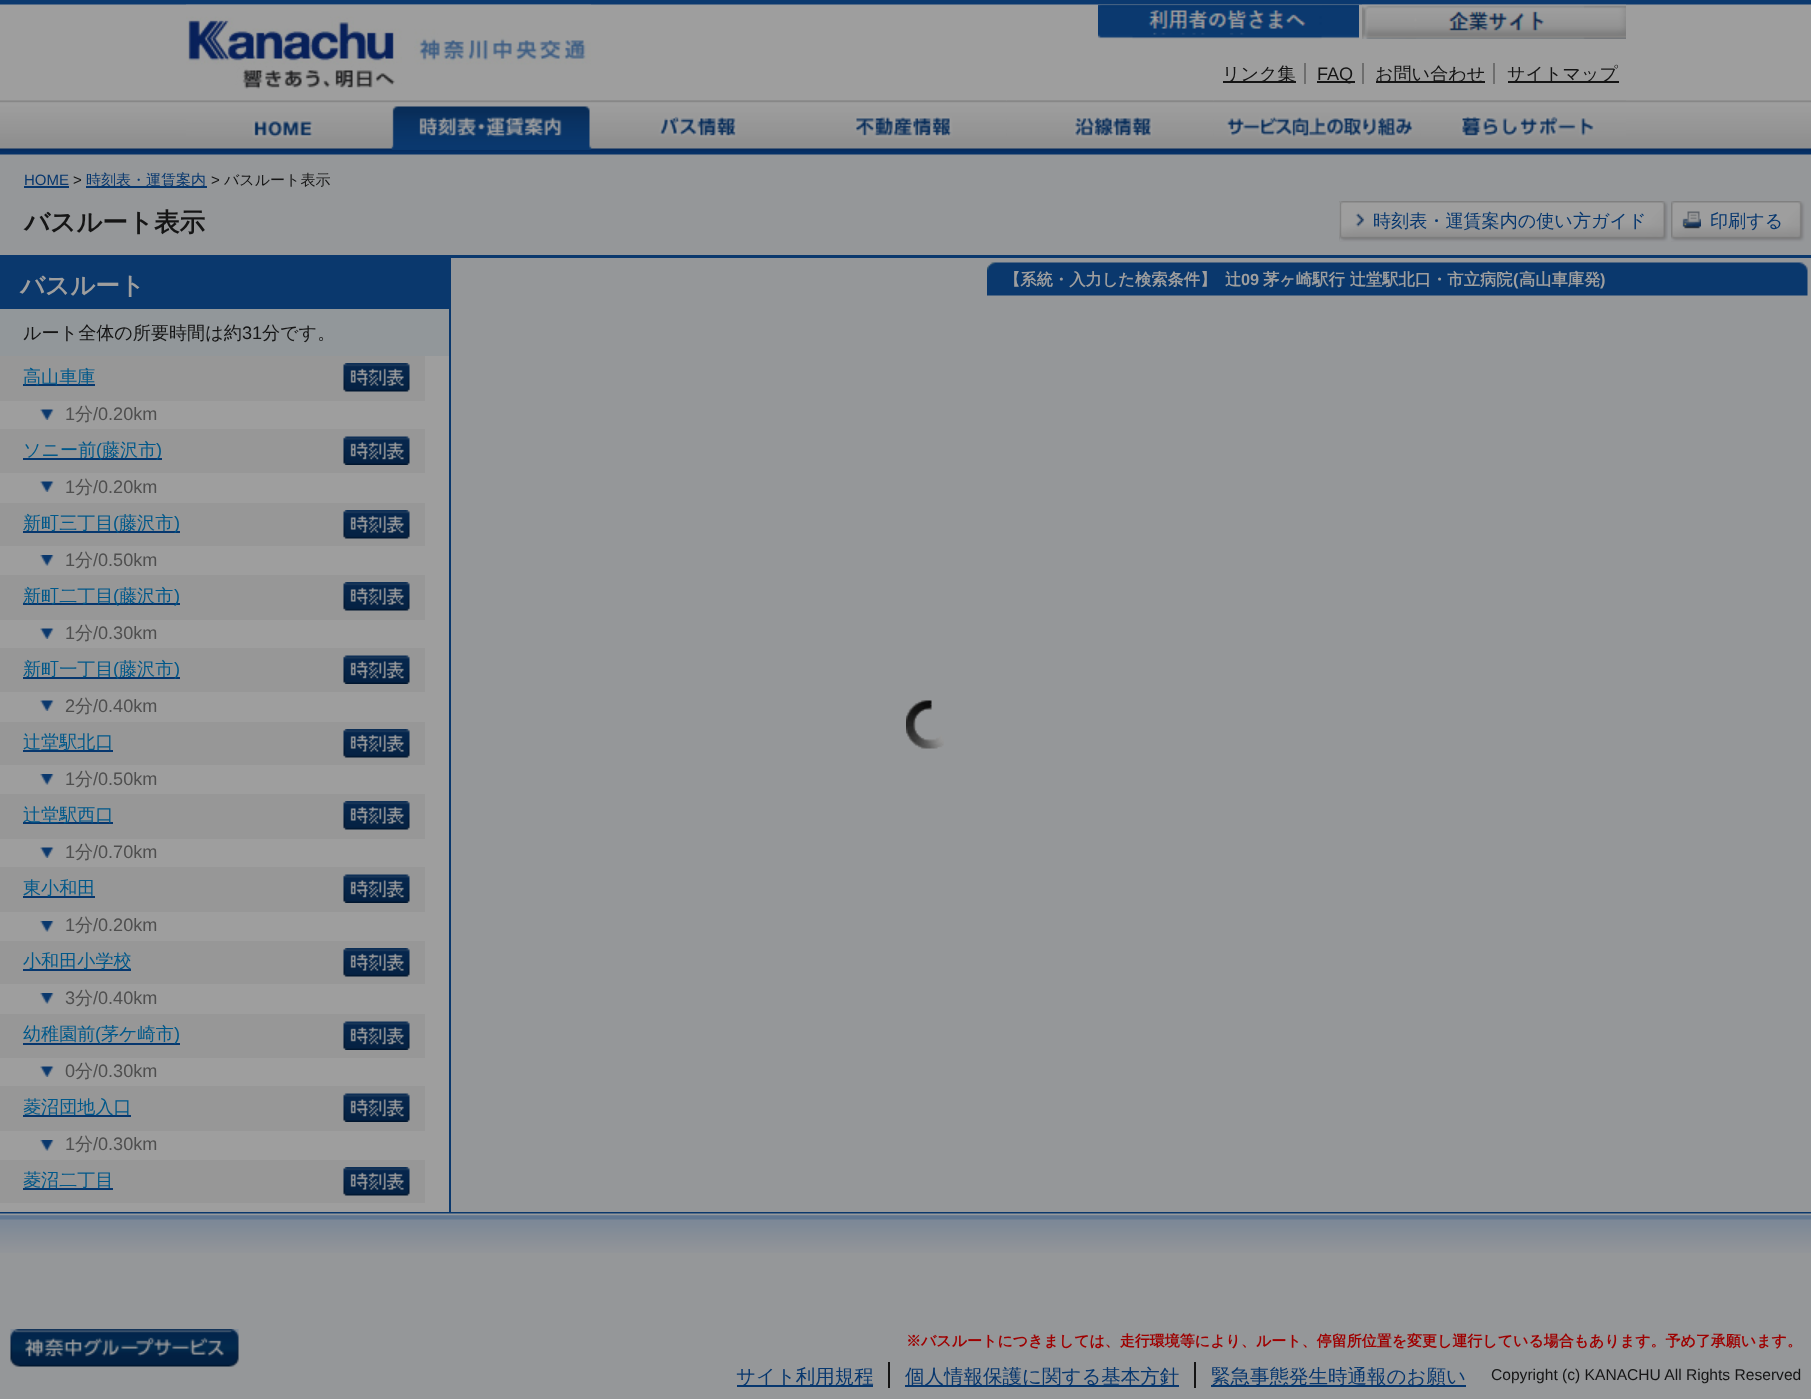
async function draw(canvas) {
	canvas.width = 1811;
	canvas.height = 1399;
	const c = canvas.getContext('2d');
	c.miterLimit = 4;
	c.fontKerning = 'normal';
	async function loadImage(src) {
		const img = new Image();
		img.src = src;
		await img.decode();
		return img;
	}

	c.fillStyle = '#959799';
	c.fillRect(0, 0, 1811, 1399);
	c.drawImage(await loadImage('img1.png'), 0, 0, 1811, 155);
	c.drawImage(await loadImage('img2.png'), 186, 4, 405, 97);
	c.drawImage(await loadImage('img3.png'), 1098, 4, 261, 35);
	c.drawImage(await loadImage('img4.png'), 1362, 4, 264, 35);
	c.fillStyle = '#151515';
	c.fillRect(1223, 81, 73, 2);
	c.font = '500 18.1px WenQuanYi Zen Hei';
	c.fillText('リンク集', 1222, 80);
	c.fillStyle = '#6e6e6e';
	c.fillRect(1304, 63, 2, 21);
	c.fillStyle = '#151515';
	c.fillRect(1317, 81, 38, 2);
	c.font = '18.1px Liberation Sans';
	c.fillText('FAQ', 1317, 80);
	c.fillStyle = '#6e6e6e';
	c.fillRect(1362, 63, 2, 21);
	c.fillStyle = '#151515';
	c.fillRect(1376, 81, 109, 2);
	c.font = '500 18.1px WenQuanYi Zen Hei';
	c.fillText('お問い合わせ', 1375, 80);
	c.fillStyle = '#6e6e6e';
	c.fillRect(1493, 63, 2, 21);
	c.fillStyle = '#151515';
	c.fillRect(1508, 81, 111, 2);
	c.fillText('サイトマップ', 1507, 80);
	c.drawImage(await loadImage('img5.png'), 186, 100, 205, 38);
	c.drawImage(await loadImage('img6.png'), 391, 100, 203, 50);
	c.drawImage(await loadImage('img7.png'), 594, 100, 213, 38);
	c.drawImage(await loadImage('img8.png'), 807, 100, 199, 38);
	c.drawImage(await loadImage('img9.png'), 1007, 100, 206, 38);
	c.drawImage(await loadImage('img10.png'), 1214, 100, 206, 38);
	c.drawImage(await loadImage('img11.png'), 1421, 100, 205, 38);
	c.font = '15px Liberation Sans';
	c.fillStyle = '#07376e';
	c.fillText('HOME', 24, 185);
	c.fillRect(24, 186, 45, 2);
	c.fillStyle = '#151515';
	c.fillText('>', 73, 185);
	c.fillStyle = '#07376e';
	c.fillRect(86, 186, 121, 2);
	c.font = '500 15px WenQuanYi Zen Hei';
	c.fillText('時刻表・運賃案内', 86, 185);
	c.font = '15px Liberation Sans';
	c.fillStyle = '#151515';
	c.fillText('>', 211, 185);
	c.font = '500 15px WenQuanYi Zen Hei';
	c.fillText('バスルート表示', 224, 185);
	c.font = 'bold 25.5px WenQuanYi Zen Hei';
	c.fillText('バスルート表示', 24, 231);
	c.drawImage(await loadImage('img12.png'), 1339, 201, 329, 41);
	c.drawImage(await loadImage('img13.png'), 1339, 201, 26, 40);
	c.font = '500 18.1px WenQuanYi Zen Hei';
	c.fillStyle = '#07376e';
	c.fillText('時刻表・運賃案内の使い方ガイド', 1373, 227);
	c.drawImage(await loadImage('img14.png'), 1671, 201, 134, 41);
	c.drawImage(await loadImage('img15.png'), 1671, 201, 30, 40);
	c.fillText('印刷する', 1710, 227);
	c.fillStyle = '#0a386d';
	c.fillRect(0, 255, 1811, 3);
	c.fillRect(0, 258, 449, 51);
	c.font = 'bold 24.5px WenQuanYi Zen Hei';
	c.fillStyle = '#9e9e9e';
	c.fillText('バスルート', 20, 294);
	c.fillRect(0, 356, 449, 856);
	c.fillStyle = '#92979a';
	c.fillRect(0, 309, 449, 47);
	c.font = '500 18.1px WenQuanYi Zen Hei';
	c.fillStyle = '#151515';
	c.fillText('ルート全体の所要時間は約', 23, 339);
	c.font = '18.1px Liberation Sans';
	c.fillText('31', 242, 339);
	c.font = '500 18.1px WenQuanYi Zen Hei';
	c.fillText('分です。', 262, 339);
	c.fillStyle = '#979797';
	c.fillRect(0, 356, 425, 45);
	c.fillStyle = '#07376e';
	c.fillRect(23, 384, 72, 2);
	c.fillStyle = '#00588a';
	c.fillText('高山車庫', 23, 383);
	c.drawImage(await loadImage('img16.png'), 343, 363, 67, 29);
	c.drawImage(await loadImage('img17.png'), 40, 409, 14, 11);
	c.font = '18.1px Liberation Sans';
	c.fillStyle = '#4f4f4f';
	c.fillText('1', 65, 420);
	c.font = '500 18.1px WenQuanYi Zen Hei';
	c.fillText('分', 75, 420);
	c.font = '18.1px Liberation Sans';
	c.fillText('/0.20km', 93, 420);
	c.fillStyle = '#979797';
	c.fillRect(0, 429, 425, 44);
	c.fillStyle = '#07376e';
	c.fillRect(23, 458, 139, 2);
	c.font = '500 18.1px WenQuanYi Zen Hei';
	c.fillStyle = '#00588a';
	c.fillText('ソニー前', 23, 456);
	c.font = '18.1px Liberation Sans';
	c.fillText('(', 96, 456);
	c.font = '500 18.1px WenQuanYi Zen Hei';
	c.fillText('藤沢市', 102, 456);
	c.font = '18.1px Liberation Sans';
	c.fillText(')', 156, 456);
	c.drawImage(await loadImage('img18.png'), 343, 436, 67, 29);
	c.drawImage(await loadImage('img17.png'), 40, 481, 14, 11);
	c.fillStyle = '#4f4f4f';
	c.fillText('1', 65, 493);
	c.font = '500 18.1px WenQuanYi Zen Hei';
	c.fillText('分', 75, 493);
	c.font = '18.1px Liberation Sans';
	c.fillText('/0.20km', 93, 493);
	c.fillStyle = '#979797';
	c.fillRect(0, 503, 425, 43);
	c.fillStyle = '#07376e';
	c.fillRect(23, 531, 157, 2);
	c.font = '500 18.1px WenQuanYi Zen Hei';
	c.fillStyle = '#00588a';
	c.fillText('新町三丁目', 23, 529);
	c.font = '18.1px Liberation Sans';
	c.fillText('(', 113, 529);
	c.font = '500 18.1px WenQuanYi Zen Hei';
	c.fillText('藤沢市', 119, 529);
	c.font = '18.1px Liberation Sans';
	c.fillText(')', 174, 529);
	c.drawImage(await loadImage('img16.png'), 343, 510, 67, 29);
	c.drawImage(await loadImage('img19.png'), 40, 555, 14, 11);
	c.fillStyle = '#4f4f4f';
	c.fillText('1', 65, 566);
	c.font = '500 18.1px WenQuanYi Zen Hei';
	c.fillText('分', 75, 566);
	c.font = '18.1px Liberation Sans';
	c.fillText('/0.50km', 93, 566);
	c.fillStyle = '#979797';
	c.fillRect(0, 575, 425, 45);
	c.fillStyle = '#07376e';
	c.fillRect(23, 603, 157, 2);
	c.font = '500 18.1px WenQuanYi Zen Hei';
	c.fillStyle = '#00588a';
	c.fillText('新町二丁目', 23, 602);
	c.font = '18.1px Liberation Sans';
	c.fillText('(', 113, 602);
	c.font = '500 18.1px WenQuanYi Zen Hei';
	c.fillText('藤沢市', 119, 602);
	c.font = '18.1px Liberation Sans';
	c.fillText(')', 174, 602);
	c.drawImage(await loadImage('img16.png'), 343, 582, 67, 29);
	c.drawImage(await loadImage('img17.png'), 40, 628, 14, 11);
	c.fillStyle = '#4f4f4f';
	c.fillText('1', 65, 639);
	c.font = '500 18.1px WenQuanYi Zen Hei';
	c.fillText('分', 75, 639);
	c.font = '18.1px Liberation Sans';
	c.fillText('/0.30km', 93, 639);
	c.fillStyle = '#979797';
	c.fillRect(0, 648, 425, 44);
	c.fillStyle = '#07376e';
	c.fillRect(23, 677, 157, 2);
	c.font = '500 18.1px WenQuanYi Zen Hei';
	c.fillStyle = '#00588a';
	c.fillText('新町一丁目', 23, 675);
	c.font = '18.1px Liberation Sans';
	c.fillText('(', 113, 675);
	c.font = '500 18.1px WenQuanYi Zen Hei';
	c.fillText('藤沢市', 119, 675);
	c.font = '18.1px Liberation Sans';
	c.fillText(')', 174, 675);
	c.drawImage(await loadImage('img18.png'), 343, 655, 67, 29);
	c.drawImage(await loadImage('img17.png'), 40, 700, 14, 11);
	c.fillStyle = '#4f4f4f';
	c.fillText('2', 65, 712);
	c.font = '500 18.1px WenQuanYi Zen Hei';
	c.fillText('分', 75, 712);
	c.font = '18.1px Liberation Sans';
	c.fillText('/0.40km', 93, 712);
	c.fillStyle = '#979797';
	c.fillRect(0, 722, 425, 43);
	c.fillStyle = '#07376e';
	c.fillRect(23, 750, 90, 2);
	c.font = '500 18.1px WenQuanYi Zen Hei';
	c.fillStyle = '#00588a';
	c.fillText('辻堂駅北口', 23, 748);
	c.drawImage(await loadImage('img16.png'), 343, 729, 67, 29);
	c.drawImage(await loadImage('img19.png'), 40, 774, 14, 11);
	c.font = '18.1px Liberation Sans';
	c.fillStyle = '#4f4f4f';
	c.fillText('1', 65, 785);
	c.font = '500 18.1px WenQuanYi Zen Hei';
	c.fillText('分', 75, 785);
	c.font = '18.1px Liberation Sans';
	c.fillText('/0.50km', 93, 785);
	c.fillStyle = '#979797';
	c.fillRect(0, 794, 425, 45);
	c.fillStyle = '#07376e';
	c.fillRect(23, 822, 90, 2);
	c.font = '500 18.1px WenQuanYi Zen Hei';
	c.fillStyle = '#00588a';
	c.fillText('辻堂駅西口', 23, 821);
	c.drawImage(await loadImage('img16.png'), 343, 801, 67, 29);
	c.drawImage(await loadImage('img17.png'), 40, 847, 14, 11);
	c.font = '18.1px Liberation Sans';
	c.fillStyle = '#4f4f4f';
	c.fillText('1', 65, 858);
	c.font = '500 18.1px WenQuanYi Zen Hei';
	c.fillText('分', 75, 858);
	c.font = '18.1px Liberation Sans';
	c.fillText('/0.70km', 93, 858);
	c.fillStyle = '#979797';
	c.fillRect(0, 867, 425, 45);
	c.fillStyle = '#07376e';
	c.fillRect(23, 896, 72, 2);
	c.font = '500 18.1px WenQuanYi Zen Hei';
	c.fillStyle = '#00588a';
	c.fillText('東小和田', 23, 894);
	c.drawImage(await loadImage('img18.png'), 343, 874, 67, 29);
	c.drawImage(await loadImage('img19.png'), 40, 921, 14, 11);
	c.font = '18.1px Liberation Sans';
	c.fillStyle = '#4f4f4f';
	c.fillText('1', 65, 931);
	c.font = '500 18.1px WenQuanYi Zen Hei';
	c.fillText('分', 75, 931);
	c.font = '18.1px Liberation Sans';
	c.fillText('/0.20km', 93, 931);
	c.fillStyle = '#979797';
	c.fillRect(0, 941, 425, 43);
	c.fillStyle = '#07376e';
	c.fillRect(23, 969, 108, 2);
	c.font = '500 18.1px WenQuanYi Zen Hei';
	c.fillStyle = '#00588a';
	c.fillText('小和田小学校', 23, 967);
	c.drawImage(await loadImage('img16.png'), 343, 948, 67, 29);
	c.drawImage(await loadImage('img19.png'), 40, 993, 14, 11);
	c.font = '18.1px Liberation Sans';
	c.fillStyle = '#4f4f4f';
	c.fillText('3', 65, 1004);
	c.font = '500 18.1px WenQuanYi Zen Hei';
	c.fillText('分', 75, 1004);
	c.font = '18.1px Liberation Sans';
	c.fillText('/0.40km', 93, 1004);
	c.fillStyle = '#979797';
	c.fillRect(0, 1014, 425, 44);
	c.font = '500 18.1px WenQuanYi Zen Hei';
	c.fillStyle = '#00588a';
	c.fillText('幼稚園前', 23, 1040);
	c.fillStyle = '#07376e';
	c.fillRect(23, 1043, 157, 2);
	c.font = '18.1px Liberation Sans';
	c.fillStyle = '#00588a';
	c.fillText('(', 95, 1040);
	c.font = '500 18.1px WenQuanYi Zen Hei';
	c.fillText('茅ケ崎市', 101, 1040);
	c.font = '18.1px Liberation Sans';
	c.fillText(')', 174, 1040);
	c.drawImage(await loadImage('img18.png'), 343, 1021, 67, 29);
	c.drawImage(await loadImage('img17.png'), 40, 1066, 14, 11);
	c.fillStyle = '#4f4f4f';
	c.fillText('0', 65, 1077);
	c.font = '500 18.1px WenQuanYi Zen Hei';
	c.fillText('分', 75, 1077);
	c.font = '18.1px Liberation Sans';
	c.fillText('/0.30km', 93, 1077);
	c.fillStyle = '#979797';
	c.fillRect(0, 1086, 425, 45);
	c.fillStyle = '#07376e';
	c.fillRect(23, 1115, 108, 2);
	c.font = '500 18.1px WenQuanYi Zen Hei';
	c.fillStyle = '#00588a';
	c.fillText('菱沼団地入口', 23, 1113);
	c.drawImage(await loadImage('img18.png'), 343, 1093, 67, 29);
	c.drawImage(await loadImage('img19.png'), 40, 1140, 14, 11);
	c.font = '18.1px Liberation Sans';
	c.fillStyle = '#4f4f4f';
	c.fillText('1', 65, 1150);
	c.font = '500 18.1px WenQuanYi Zen Hei';
	c.fillText('分', 75, 1150);
	c.font = '18.1px Liberation Sans';
	c.fillText('/0.30km', 93, 1150);
	c.fillStyle = '#979797';
	c.fillRect(0, 1160, 425, 43);
	c.fillStyle = '#07376e';
	c.fillRect(23, 1188, 90, 2);
	c.font = '500 18.1px WenQuanYi Zen Hei';
	c.fillStyle = '#00588a';
	c.fillText('菱沼二丁目', 23, 1186);
	c.drawImage(await loadImage('img16.png'), 343, 1167, 67, 29);
	c.fillStyle = '#0a386d';
	c.fillRect(449, 258, 2, 954);
	c.drawImage(await loadImage('img20.png'), 987, 262, 821, 34);
	c.font = 'bold 16.3px WenQuanYi Zen Hei';
	c.fillStyle = '#9e9e9e';
	c.fillText('【系統・入力した検索条件】', 1004, 285);
	c.fillText('辻', 1225, 285);
	c.font = 'bold 16.3px Liberation Sans';
	c.fillText('09', 1241, 285);
	c.font = 'bold 16.3px WenQuanYi Zen Hei';
	c.fillText('茅ヶ崎駅行 辻堂駅北口・市立病院', 1263, 285);
	c.font = 'bold 16.3px Liberation Sans';
	c.fillText('(', 1513, 285);
	c.font = 'bold 16.3px WenQuanYi Zen Hei';
	c.fillText('高山車庫発', 1519, 285);
	c.font = 'bold 16.3px Liberation Sans';
	c.fillText(')', 1600, 285);
	c.drawImage(await loadImage('img21.png'), 906, 700, 38, 49);
	c.drawImage(await loadImage('img22.png'), 0, 1212, 1811, 41);
	c.drawImage(await loadImage('img23.png'), 10, 1329, 229, 38);
	c.font = 'bold 15px WenQuanYi Zen Hei';
	c.fillStyle = '#9e0000';
	c.fillText('※バスルートにつきましては、走行環境等により、ルート、停留所位置を変更し運行している場合もあります。予め了承願います。', 906, 1346);
	c.fillStyle = '#141414';
	c.fillRect(888, 1362, 2, 26);
	c.fillStyle = '#07376e';
	c.fillRect(737, 1385, 136, 2);
	c.font = '500 19.5px WenQuanYi Zen Hei';
	c.fillText('サイト利用規程', 736, 1383);
	c.fillStyle = '#141414';
	c.fillRect(1194, 1362, 2, 26);
	c.fillStyle = '#07376e';
	c.fillRect(905, 1385, 274, 2);
	c.fillText('個人情報保護に関する基本方針', 905, 1383);
	c.fillRect(1211, 1385, 255, 2);
	c.fillText('緊急事態発生時通報のお願い', 1211, 1383);
	c.font = '15.6px Liberation Sans';
	c.fillStyle = '#151515';
	c.fillText('Copyright (c) KANACHU All Rights Reserved', 1491, 1380);
}

draw(document.querySelector('canvas'));
